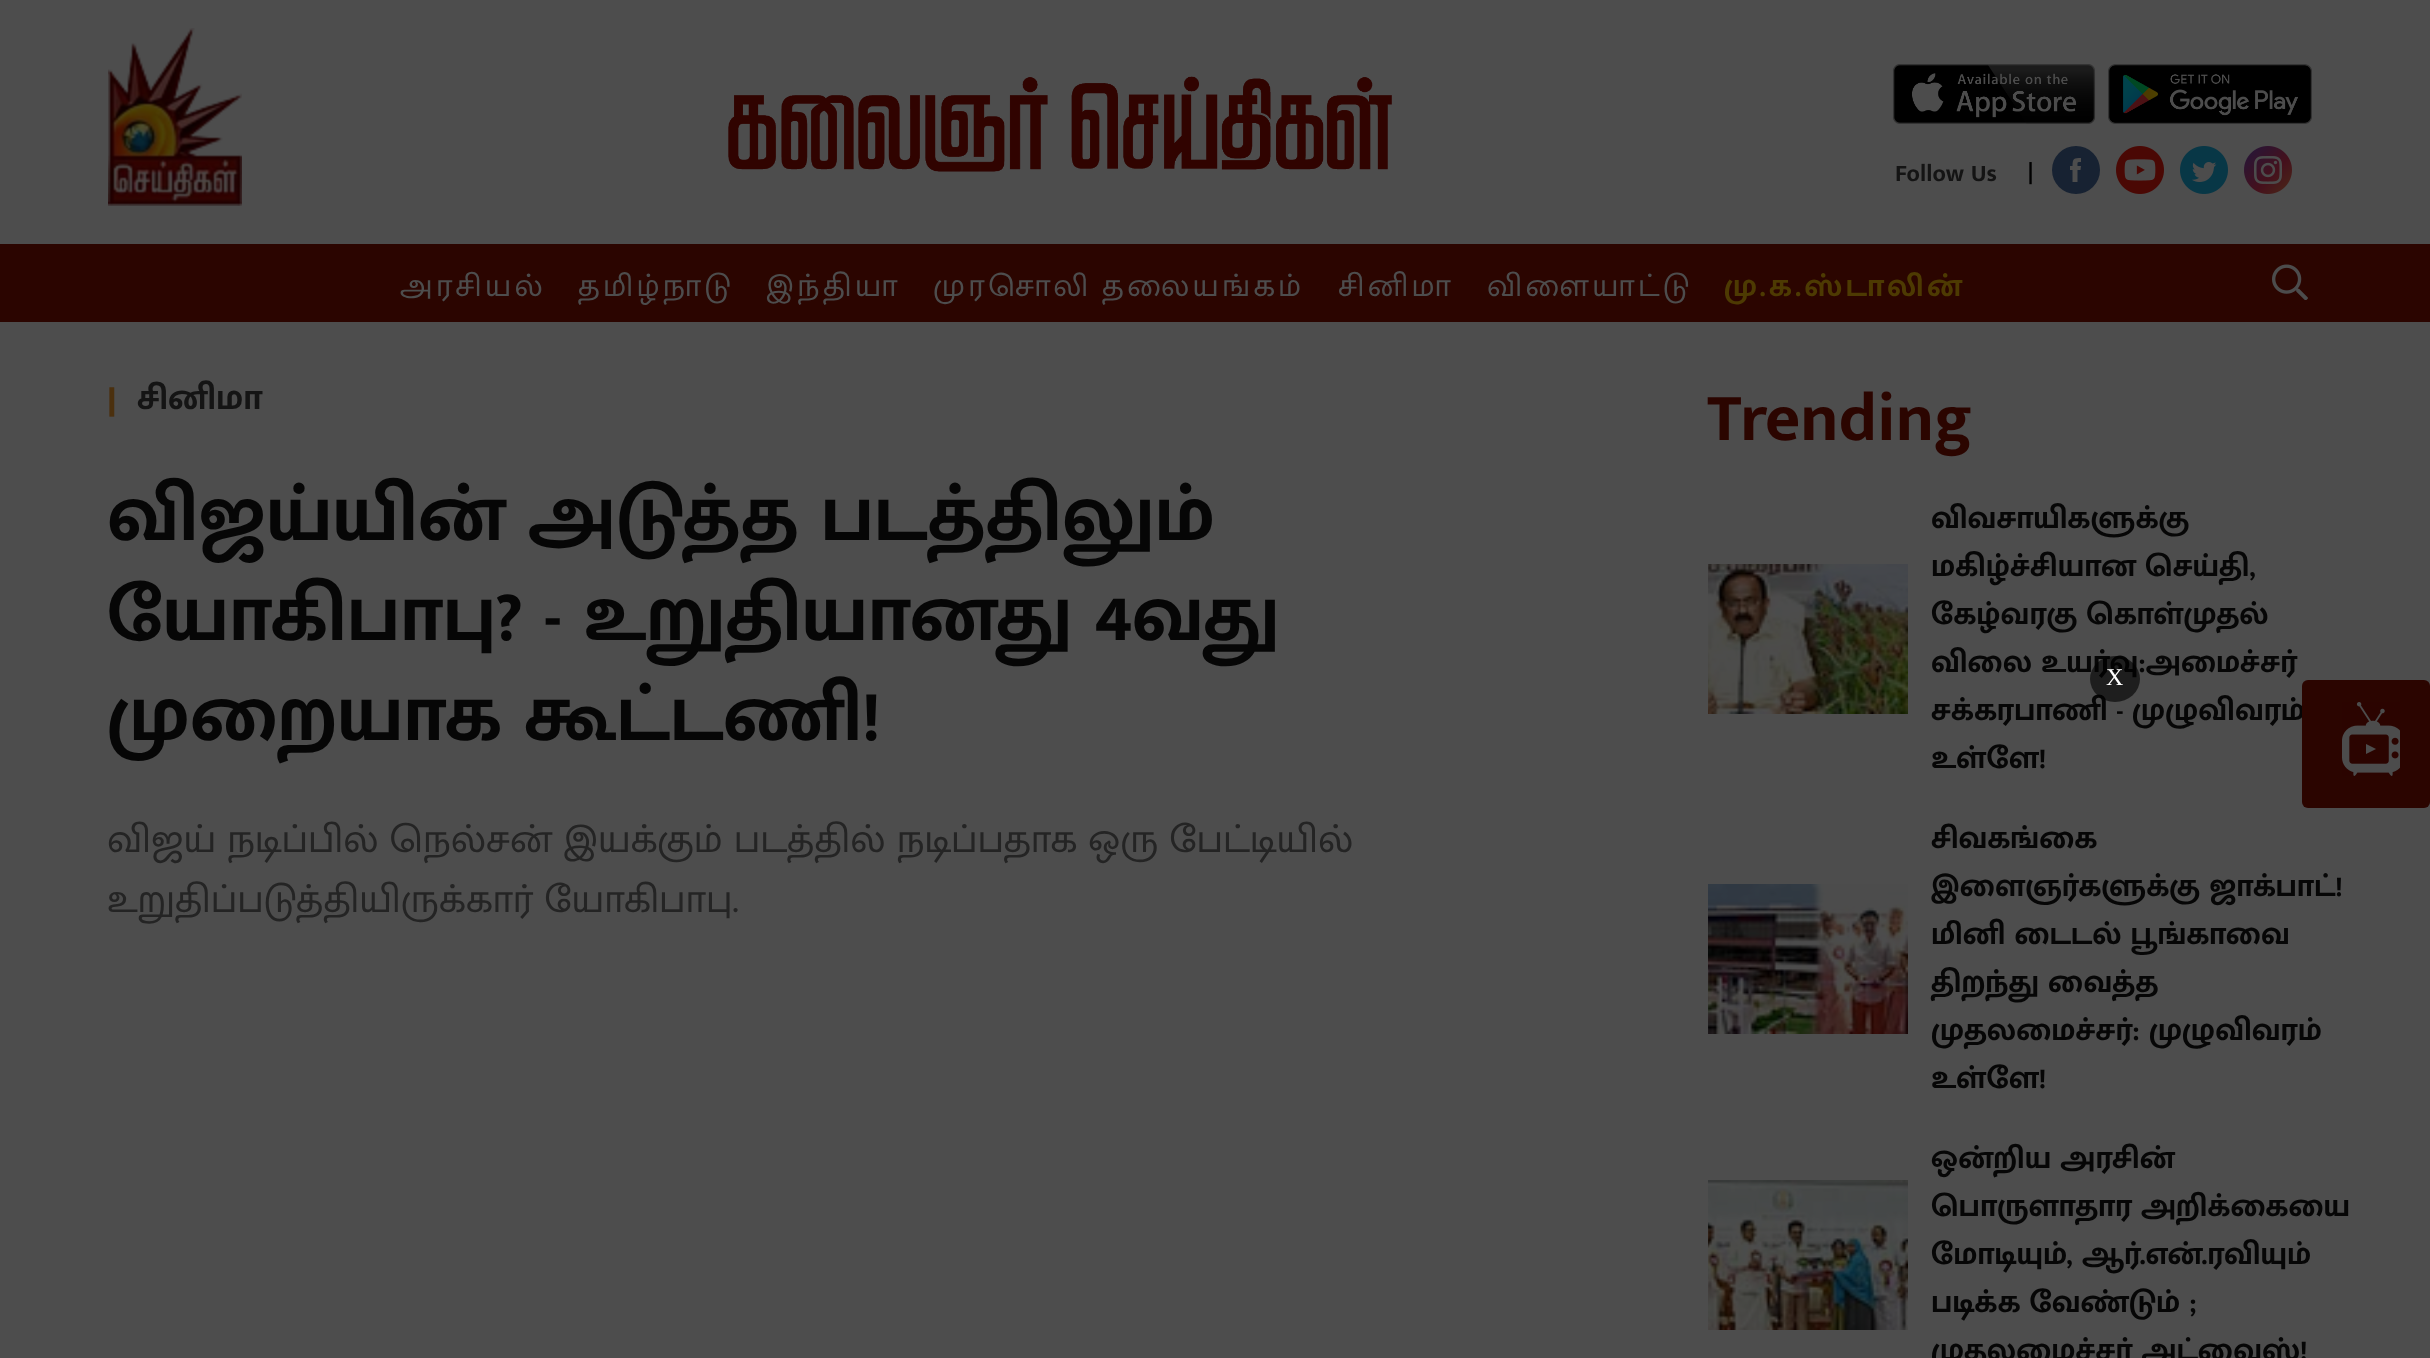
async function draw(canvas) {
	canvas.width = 2430;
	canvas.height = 1358;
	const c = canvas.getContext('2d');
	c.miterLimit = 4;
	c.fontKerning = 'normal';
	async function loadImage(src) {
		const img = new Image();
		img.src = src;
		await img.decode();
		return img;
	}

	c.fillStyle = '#4d4d4d';
	c.fillRect(0, 0, 2430, 1358);
	c.drawImage(await loadImage('img1.png'), 108, 28, 134, 178);
	c.drawImage(await loadImage('img2.png'), 728, 76, 664, 96);
	c.drawImage(await loadImage('img3.png'), 1892, 64, 204, 60);
	c.drawImage(await loadImage('img4.png'), 2108, 64, 204, 60);
	c.font = 'bold 24px Mukta Malar';
	c.fillStyle = '#141414';
	c.fillText('Follow Us', 1895, 181);
	c.font = '32px Mukta Malar';
	c.fillStyle = '#000';
	c.fillText('|', 2027, 181);
	c.fillStyle = '#172232';
	c.beginPath();
	c.arc(2076, 170, 24, 0, 2 * Math.PI);
	c.fill();
	c.drawImage(await loadImage('img5.png'), 2116, 146, 48, 48);
	c.drawImage(await loadImage('img6.png'), 2180, 146, 48, 48);
	c.drawImage(await loadImage('img7.png'), 2244, 146, 48, 48);
	c.fillStyle = '#4d4d4d';
	c.beginPath();
	c.moveTo(2077.5, 182);
	c.lineTo(2077.5, 170);
	c.lineTo(2080.5, 170);
	c.lineTo(2081, 166);
	c.lineTo(2077.5, 166);
	c.bezierCurveTo(2077.5, 162, 2077, 162, 2081, 162);
	c.lineTo(2081, 158);
	c.bezierCurveTo(2074, 158, 2072.5, 158, 2072.5, 166);
	c.lineTo(2070, 166);
	c.lineTo(2070, 170);
	c.lineTo(2072.5, 170);
	c.lineTo(2072.5, 182);
	c.closePath();
	c.fill();
	c.fillStyle = '#2b0500';
	c.fillRect(0, 244, 2430, 78);
	c.letterSpacing = '3.4px';
	c.fillStyle = '#4d4d4d';
	for (const [text, x, y] of [
		['அரசியல்', 400, 296],
		['தமிழ்நாடு', 578, 296],
		['இந்தியா', 766, 296],
	]) {
		c.fillText(text, x, y);
	}
	c.wordSpacing = '-2px';
	c.fillText('முரசொலி தலையங்கம்', 933, 296);
	c.wordSpacing = '0px';
	c.fillText('சினிமா', 1338, 296);
	c.fillText('விளையாட்டு', 1487, 296);
	c.font = 'bold 32px Mukta Malar';
	c.fillStyle = '#4d3a02';
	c.fillText('மு.க.ஸ்டாலின்', 1724, 296);
	c.drawImage(await loadImage('img8.png'), 2272, 264, 36, 36);
	c.letterSpacing = '0px';
	c.font = 'bold 40px Mukta Malar';
	c.fillStyle = '#4b300e';
	c.fillText('|', 107, 412);
	c.font = 'bold 36px Mukta Malar';
	c.fillStyle = '#141414';
	c.fillText('சினிமா', 137, 409);
	c.font = 'bold 80px Mukta Malar';
	c.fillStyle = '#060606';
	for (const [text, x, y] of [
		['விஜய்யின் அடுத்த படத்திலும்', 107, 540],
		['யோகிபாபு? - உறுதியானது 4வது', 107, 640],
		['முறையாக கூட்டணி!', 107, 740],
	]) {
		c.fillText(text, x, y);
	}
	c.font = '40px Mukta Malar';
	c.fillStyle = '#242424';
	c.fillText('விஜய் நடிப்பில் நெல்சன் இயக்கும் படத்தில் நடிப்பதாக ஒரு பேட்டியில்', 107, 852);
	c.fillText('உறுதிப்படுத்தியிருக்கார் யோகிபாபு.', 107, 912);
	c.font = 'bold 68px Mukta Malar';
	c.fillStyle = '#2b0500';
	c.fillText('Trending', 1707, 440);
	c.drawImage(await loadImage('img9.png'), 1708, 564, 200, 150);
	c.font = 'bold 32px Mukta Malar';
	c.fillStyle = '#060606';
	for (const [text, x, y] of [
		['விவசாயிகளுக்கு', 1931, 528],
		['மகிழ்ச்சியான செய்தி,', 1931, 576],
		['கேழ்வரகு கொள்முதல்', 1931, 624],
		['விலை உயர்வு:அமைச்சர்', 1931, 672],
		['சக்கரபாணி - முழுவிவரம்', 1931, 720],
		['உள்ளே!', 1931, 768],
	]) {
		c.fillText(text, x, y);
	}
	c.drawImage(await loadImage('img10.png'), 1708, 884, 200, 150);
	for (const [text, x, y] of [
		['சிவகங்கை', 1931, 848],
		['இளைஞர்களுக்கு ஜாக்பாட்!', 1931, 896],
		['மினி டைடல் பூங்காவை', 1931, 944],
		['திறந்து வைத்த', 1931, 992],
		['முதலமைச்சர்: முழுவிவரம்', 1931, 1040],
		['உள்ளே!', 1931, 1088],
	]) {
		c.fillText(text, x, y);
	}
	c.drawImage(await loadImage('img11.png'), 1708, 1180, 200, 150);
	for (const [text, x, y] of [
		['ஒன்றிய அரசின்', 1931, 1168],
		['பொருளாதார அறிக்கையை', 1931, 1216],
		['மோடியும்,', 1931, 1264],
		['ஆர்.என்.ரவியும்', 2082, 1264],
		['படிக்க வேண்டும் ;', 1931, 1312],
		['முதலமைச்சர் அட்வைஸ்!', 1931, 1360],
	]) {
		c.fillText(text, x, y);
	}
	c.fillStyle = '#2b0500';
	c.beginPath();
	c.roundRect(2302, 680, 128, 128, 6);
	c.fill();
	c.drawImage(await loadImage('img12.png'), 2342, 702, 58, 74);
	c.fillStyle = '#00000099';
	c.beginPath();
	c.ellipse(2115, 679, 25, 23, 0, 0, 2 * Math.PI);
	c.fill();
	c.font = '24px Liberation Serif';
	c.fillStyle = '#fff';
	c.fillText('X', 2106, 685);
}

draw(document.querySelector('canvas'));
